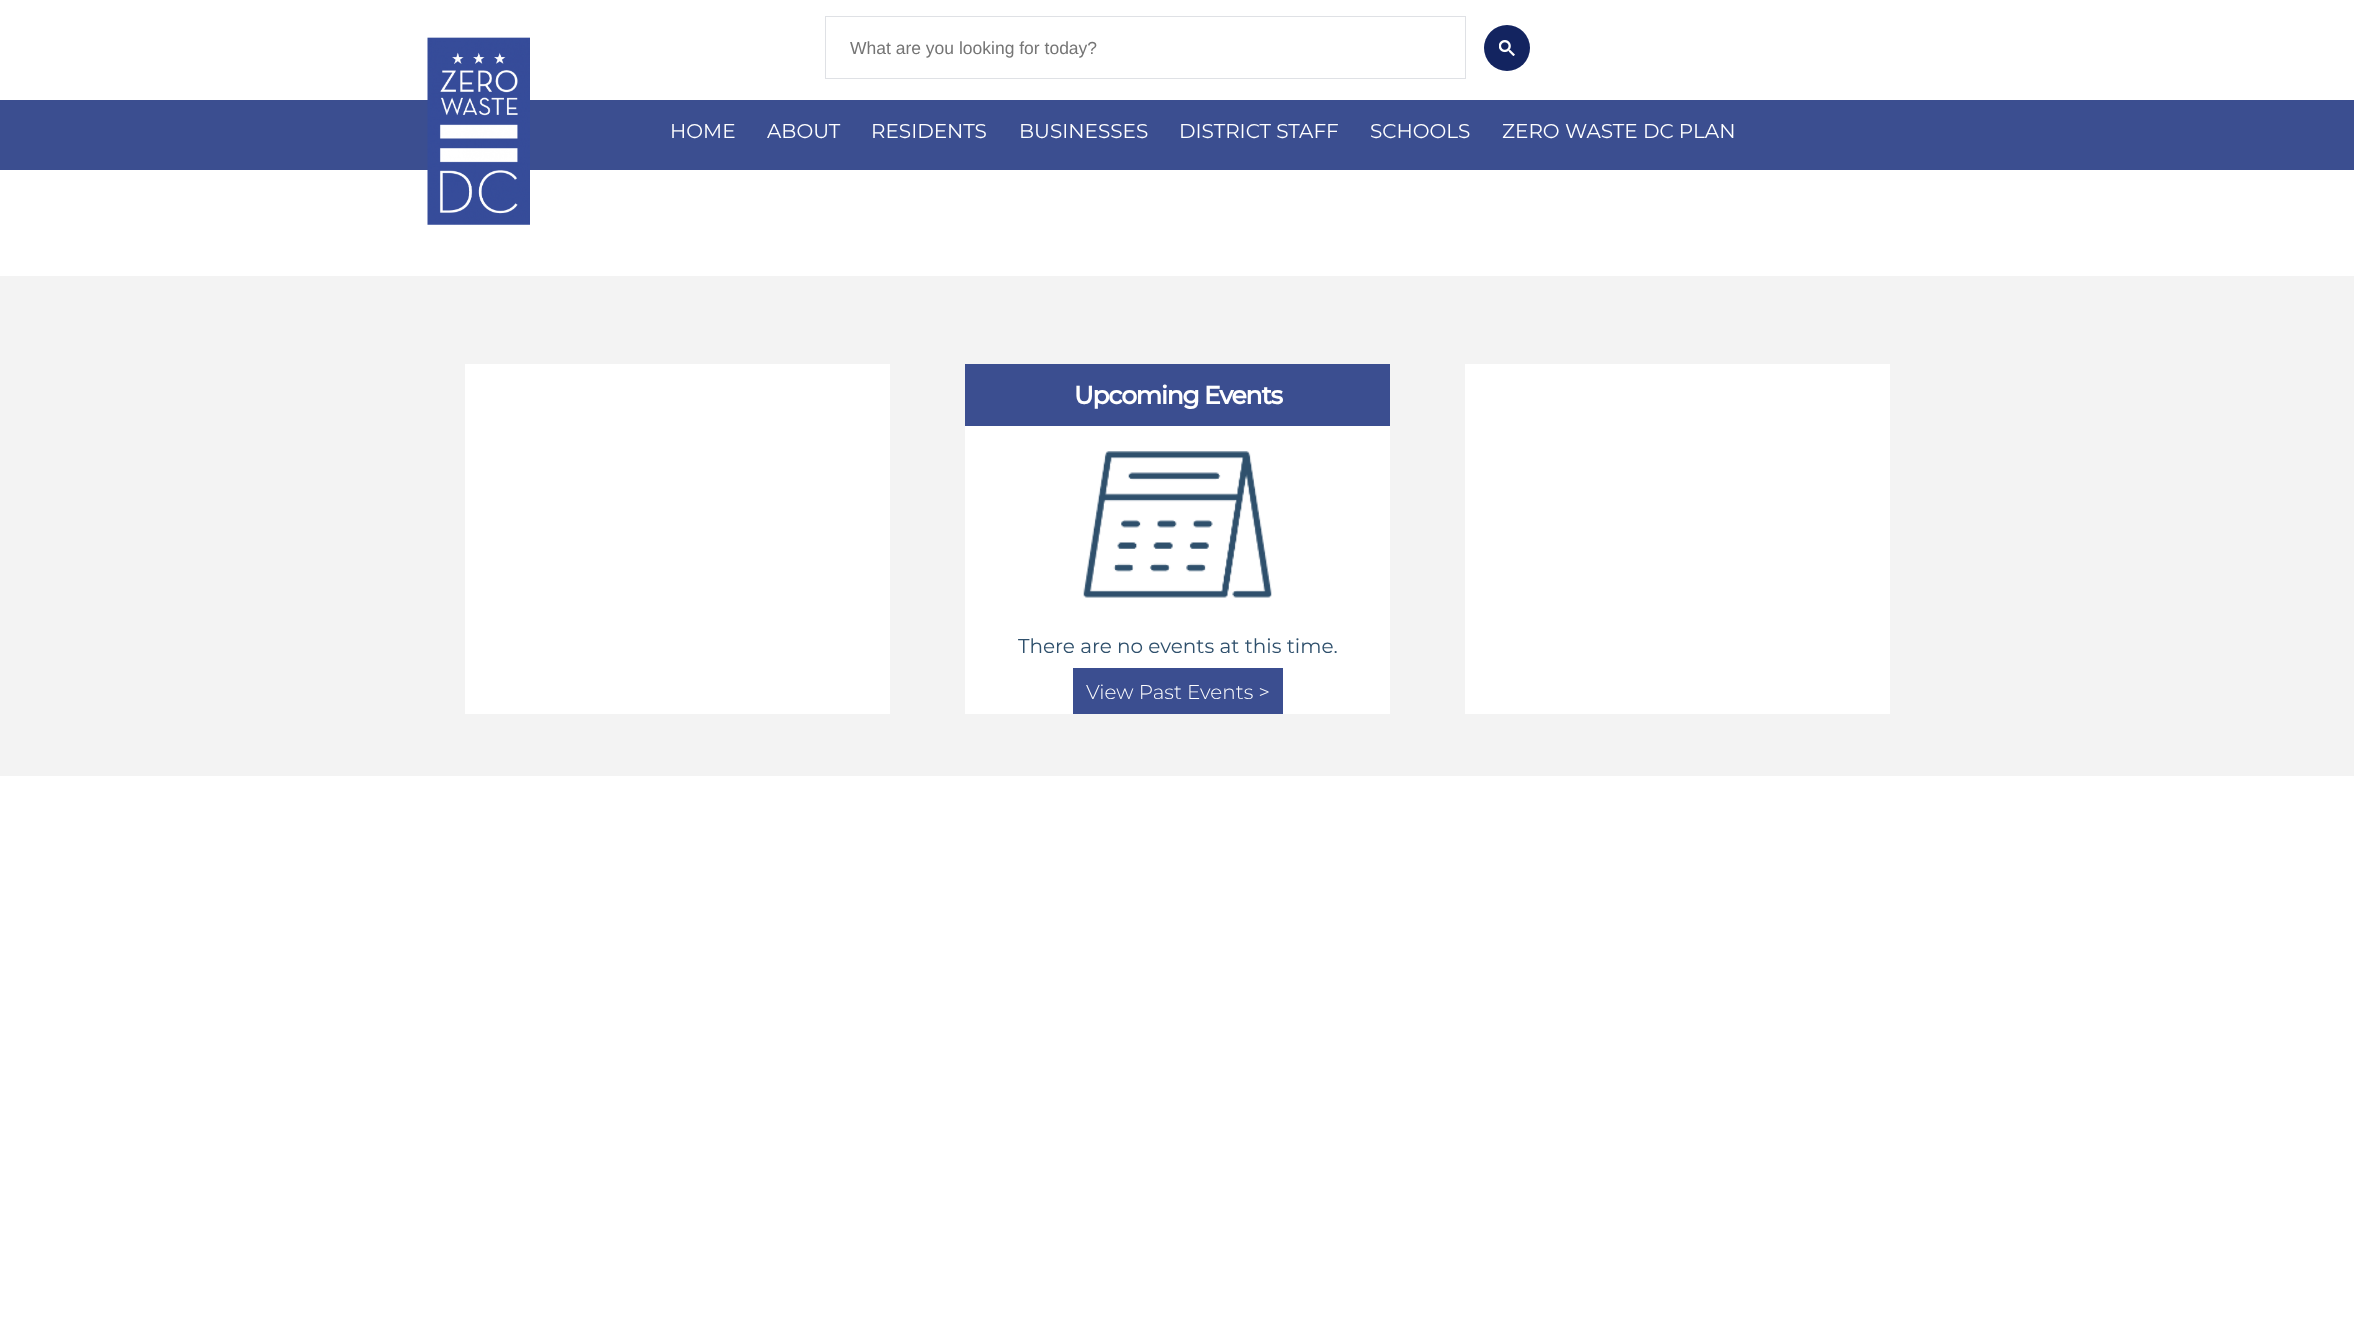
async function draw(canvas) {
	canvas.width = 2354;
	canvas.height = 1318;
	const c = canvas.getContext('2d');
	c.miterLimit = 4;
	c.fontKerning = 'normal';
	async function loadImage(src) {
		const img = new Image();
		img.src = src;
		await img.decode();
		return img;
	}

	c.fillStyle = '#fff';
	c.fillRect(0, 0, 2354, 1318);
	c.fillStyle = '#3b4e90';
	c.fillRect(0, 100, 2354, 70);
	c.strokeStyle = '#dfe1e5';
	c.strokeRect(825.5, 16.5, 640, 62);
	c.font = '17.5px Liberation Sans';
	c.fillStyle = '#757575';
	c.fillText('What are you looking for today?', 850, 54);
	c.fillStyle = '#132460';
	c.beginPath();
	c.arc(1507, 48, 23, 0, 2 * Math.PI);
	c.fill();
	c.drawImage(await loadImage('img1.png'), 1499, 40, 16, 16);
	c.drawImage(await loadImage('img2.png'), 427, 37, 103, 188);
	c.font = '20px Montserrat';
	c.fillStyle = '#fff';
	for (const [text, x, y] of [
		['HOME', 670, 138],
		['ABOUT', 767, 138],
		['RESIDENTS', 871, 138],
		['BUSINESSES', 1019, 138],
		['DISTRICT STAFF', 1179, 138],
		['SCHOOLS', 1370, 138],
		['ZERO WASTE DC PLAN', 1502, 138],
	]) {
		c.fillText(text, x, y);
	}
	for (const [x, y, w, h, color] of [
		[0, 276, 2354, 500, '#f3f3f3'],
		[465, 364, 425, 350, '#fff'],
		[965, 426, 425, 288, '#fff'],
		[965, 364, 425, 62, '#3b4e90'],
	]) {
		c.fillStyle = color;
		c.fillRect(x, y, w, h);
	}
	c.letterSpacing = '-1.25px';
	c.font = 'bold 25px Montserrat';
	c.fillStyle = '#fff';
	c.fillText('Upcoming Events', 1074, 404);
	c.drawImage(await loadImage('img3.png'), 1083, 451, 189, 147);
	c.letterSpacing = '0px';
	c.font = '20px Montserrat';
	c.fillStyle = '#2f506c';
	c.fillText('There are no events at this time.', 1018, 653);
	c.fillStyle = '#3b4e90';
	c.fillRect(1073, 668, 210, 46);
	c.font = '300 20px Montserrat';
	c.fillStyle = '#fff';
	c.fillText('View Past Events >', 1086, 699);
	c.fillRect(1465, 364, 425, 350);
}

draw(document.querySelector('canvas'));
